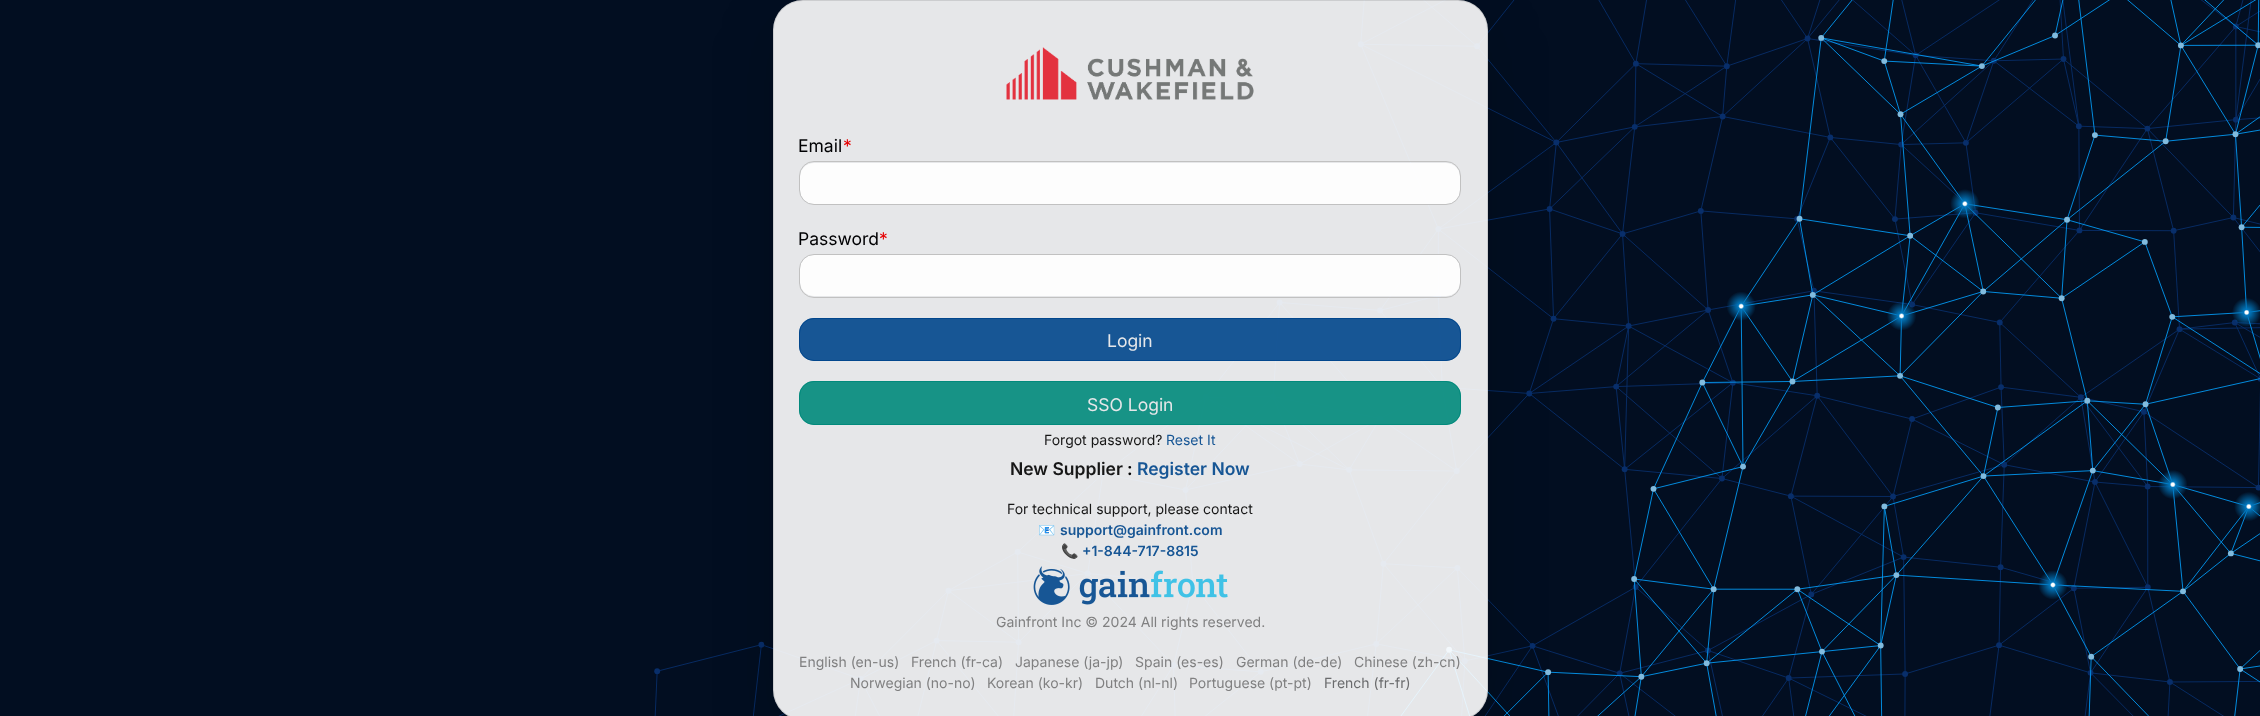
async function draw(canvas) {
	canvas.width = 2260;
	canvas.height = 716;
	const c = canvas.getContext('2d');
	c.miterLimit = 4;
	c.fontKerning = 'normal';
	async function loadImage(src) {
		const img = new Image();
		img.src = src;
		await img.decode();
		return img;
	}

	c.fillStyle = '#fff';
	c.fillRect(0, 0, 2260, 716);
	c.drawImage(await loadImage('img1.png'), 0, 0, 2260, 716);
	c.save();
	c.beginPath();
	c.moveTo(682, 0);
	c.lineTo(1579, 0);
	c.lineTo(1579, 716);
	c.lineTo(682, 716);
	c.closePath();
	c.moveTo(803, 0);
	c.lineTo(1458, 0);
	c.bezierCurveTo(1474.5, 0, 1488, 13.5, 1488, 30);
	c.lineTo(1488, 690);
	c.bezierCurveTo(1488, 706.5, 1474.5, 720, 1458, 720);
	c.lineTo(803, 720);
	c.bezierCurveTo(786.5, 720, 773, 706.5, 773, 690);
	c.lineTo(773, 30);
	c.bezierCurveTo(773, 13.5, 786.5, 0, 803, 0);
	c.closePath();
	c.clip('evenodd');
	c.fillStyle = '#00000029';
	c.filter = 'blur(30px)';
	c.beginPath();
	c.roundRect(773, 20, 715, 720, 30);
	c.fill();
	c.filter = 'none';
	c.restore();
	c.fillStyle = '#ffffffe6';
	c.beginPath();
	c.roundRect(773, 0, 715, 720, 30);
	c.fill();
	c.beginPath();
	c.roundRect(773.5, 0.5, 714, 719, 29.5);
	c.strokeStyle = '#0000001c';
	c.stroke();
	c.drawImage(await loadImage('img2.png'), 1006, 47, 248, 53);
	c.font = '17.5px Inter';
	c.fillStyle = '#000103';
	c.fillText('Email', 798, 152);
	c.fillStyle = '#e60103';
	c.fillText('*', 843, 152);
	c.fillStyle = '#ffffffe6';
	c.beginPath();
	c.roundRect(800, 163, 660, 41, 14);
	c.fill();
	c.beginPath();
	c.roundRect(799.5, 161.5, 661, 43, 14.5);
	c.strokeStyle = '#bdbdbde6';
	c.stroke();
	c.fillStyle = '#000103';
	c.fillText('Password', 798, 245);
	c.fillStyle = '#e60103';
	c.fillText('*', 879, 245);
	c.fillStyle = '#ffffffe6';
	c.beginPath();
	c.roundRect(800, 255, 660, 41, 14);
	c.fill();
	c.beginPath();
	c.roundRect(799.5, 254.5, 661, 43, 14.5);
	c.stroke();
	c.fillStyle = '#00468ce6';
	c.beginPath();
	c.roundRect(799, 318, 662, 43, 15);
	c.fill();
	c.beginPath();
	c.roundRect(799.5, 318.5, 661, 42, 14.5);
	c.strokeStyle = '#00468ce6';
	c.stroke();
	c.fillStyle = '#e6e7e9';
	c.fillText('Login', 1107, 347);
	c.fillStyle = '#00897be6';
	c.beginPath();
	c.roundRect(799, 381, 662, 44, 15);
	c.fill();
	c.beginPath();
	c.roundRect(799.5, 381.5, 661, 43, 14.5);
	c.strokeStyle = '#00897be6';
	c.stroke();
	c.fillStyle = '#e6e7e9';
	c.fillText('SSO Login', 1087, 411);
	c.font = '14px Inter';
	c.fillStyle = '#171717';
	c.fillText('Forgot password?', 1044, 445);
	c.fillStyle = '#175695';
	c.fillText('Reset It', 1166, 445);
	c.font = '600 17.5px Inter';
	c.fillStyle = '#171717';
	c.fillText('New Supplier', 1010, 475);
	c.fillStyle = '#000103';
	c.fillText(':', 1127, 475);
	c.fillStyle = '#175695';
	c.fillText('Register Now', 1137, 475);
	c.font = '14px Inter';
	c.fillStyle = '#171717';
	c.fillText('For technical support, please contact', 1007, 514);
	c.font = '14px Noto Color Emoji';
	c.fillText('📧', 1038, 535);
	c.font = '600 14px Inter';
	c.fillStyle = '#175695';
	c.fillText('support@gainfront.com', 1060, 535);
	c.font = '14px Noto Color Emoji';
	c.fillStyle = '#000103';
	c.fillText('📞', 1061, 556);
	c.font = '600 14px Inter';
	c.fillStyle = '#175695';
	c.fillText('+1-844-717-8815', 1082, 556);
	c.drawImage(await loadImage('img3.png'), 1033, 566, 195, 39);
	c.font = '14px Inter';
	c.fillStyle = '#808081';
	for (const [text, x, y] of [
		['Gainfront Inc © 2024 All rights reserved.', 996, 627],
		['English (en-us)', 799, 667],
		['French (fr-ca)', 911, 667],
		['Japanese (ja-jp)', 1015, 667],
		['Spain (es-es)', 1135, 667],
		['German (de-de)', 1236, 667],
		['Chinese (zh-cn)', 1354, 667],
		['Norwegian (no-no)', 850, 688],
		['Korean (ko-kr)', 987, 688],
		['Dutch (nl-nl)', 1095, 688],
		['Portuguese (pt-pt)', 1189, 688],
	]) {
		c.fillText(text, x, y);
	}
	c.fillStyle = '#6a6b6d';
	c.fillText('French (fr-fr)', 1324, 688);
}

draw(document.querySelector('canvas'));
